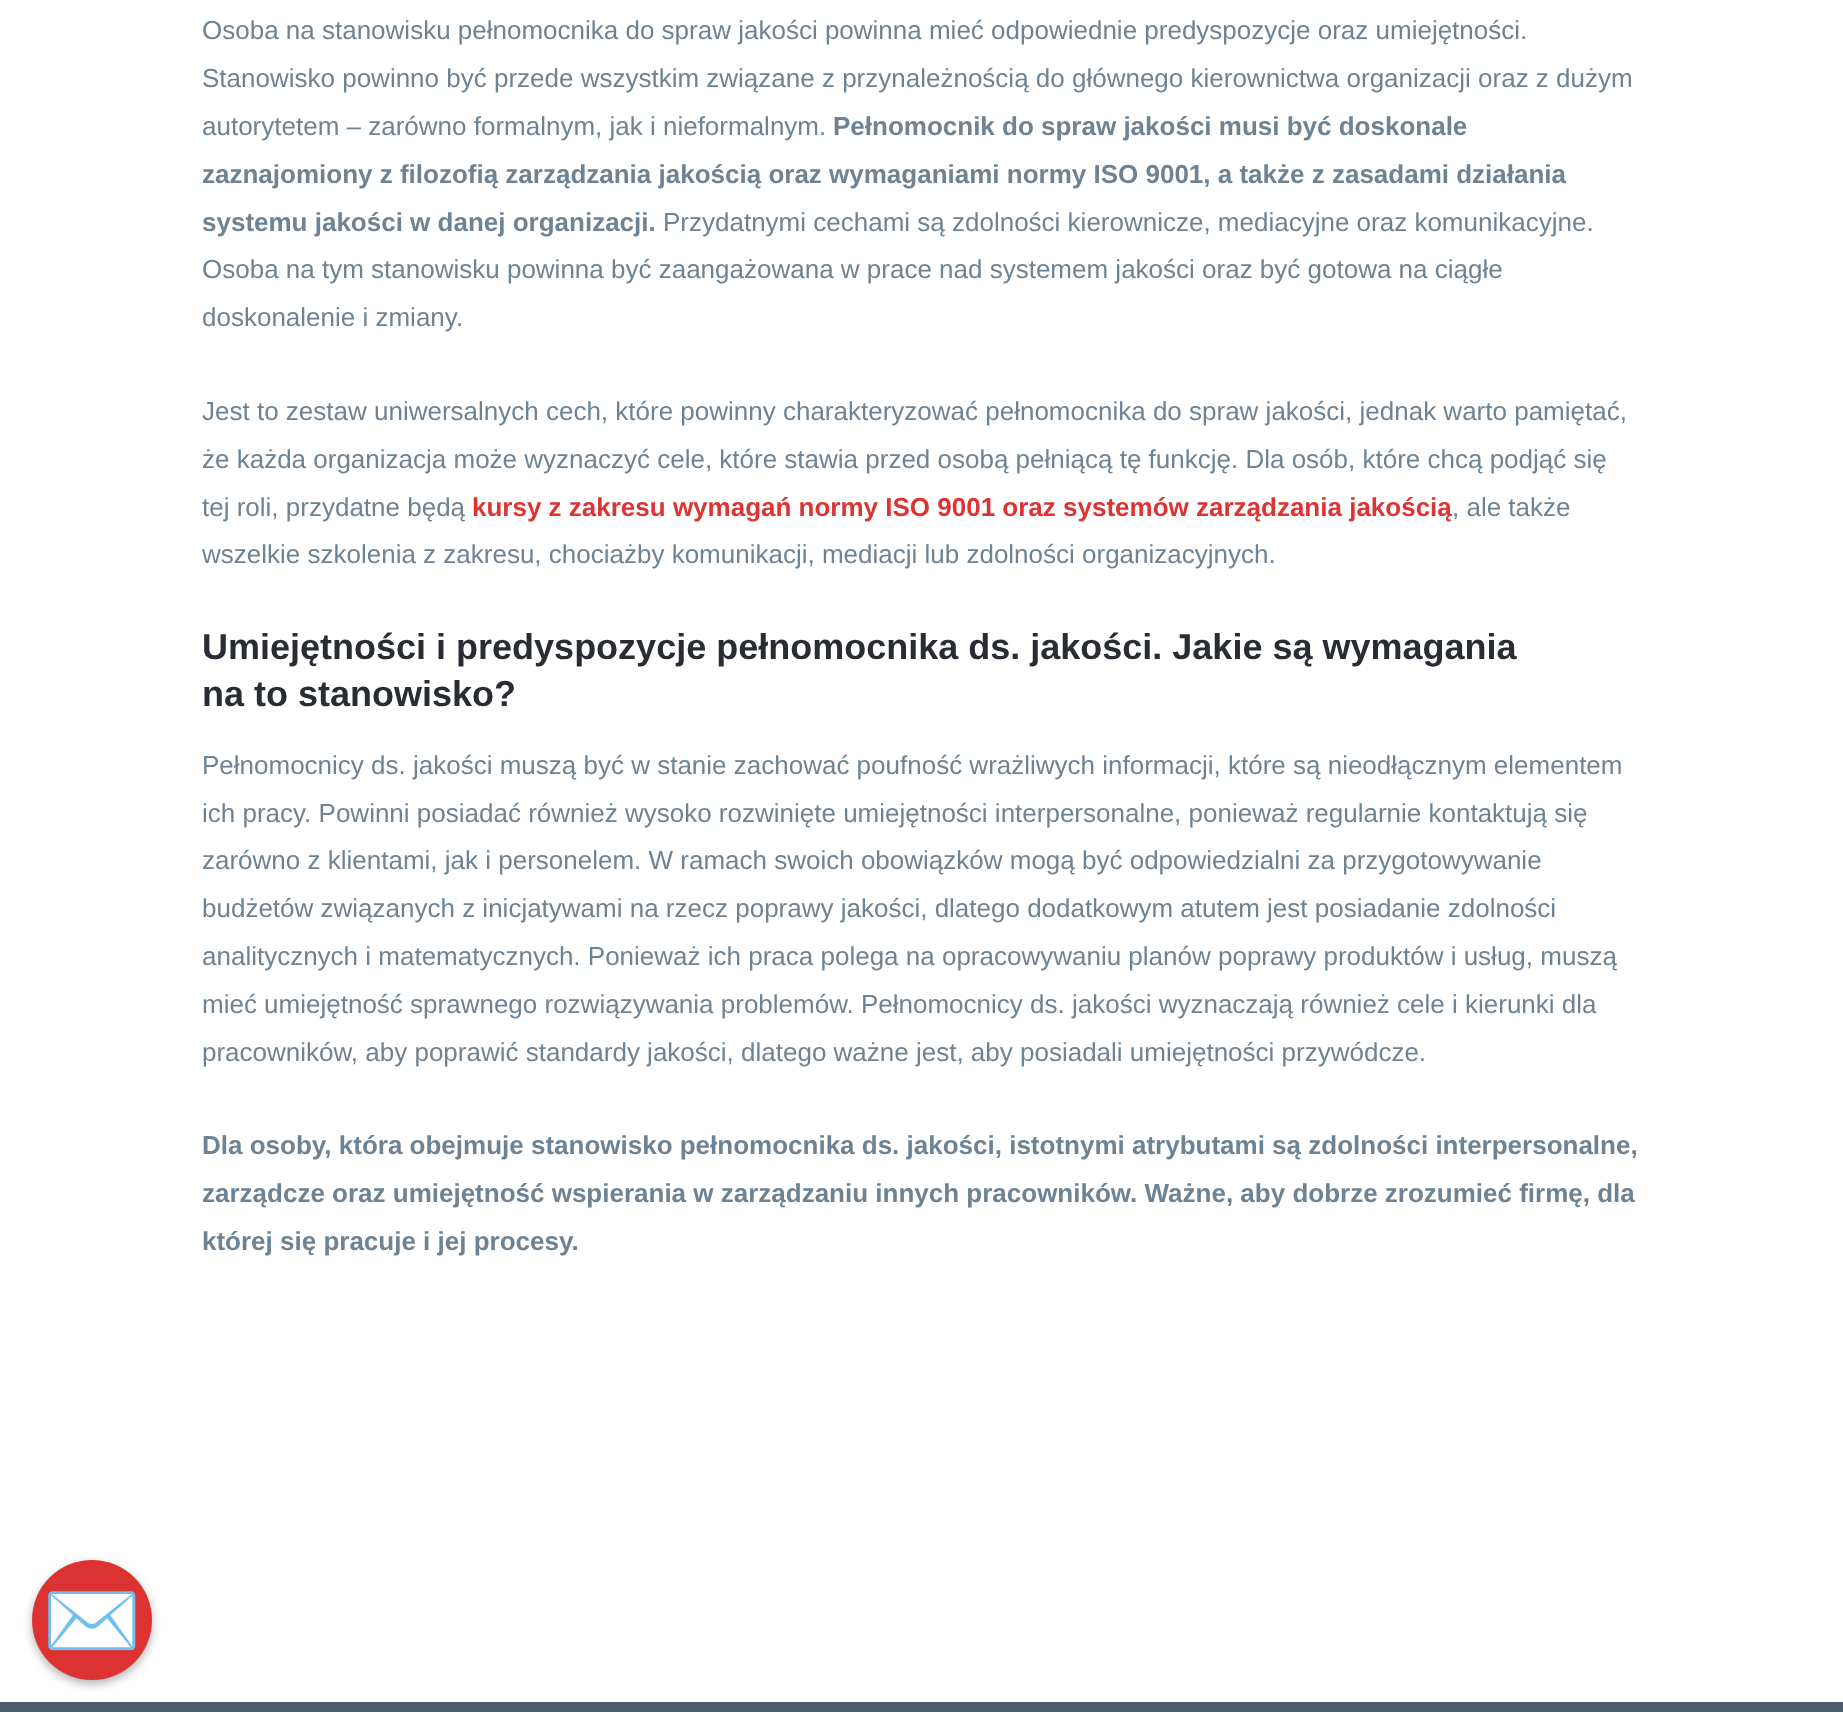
async function draw(canvas) {
	canvas.width = 1843;
	canvas.height = 1712;
	const c = canvas.getContext('2d');
	c.miterLimit = 4;
	c.fontKerning = 'normal';

	c.fillStyle = '#fff';
	c.fillRect(0, 0, 1843, 1712);
	c.font = '26px Liberation Sans';
	c.fillStyle = '#6d8394';
	for (const [text, x, y] of [
		['Osoba na stanowisku pełnomocnika do spraw jakości powinna mieć odpowiednie predyspozycje oraz umiejętności.', 202, 39],
		['Stanowisko powinno być przede wszystkim związane z przynależnością do głównego kierownictwa organizacji oraz z dużym', 202, 87],
		['autorytetem – zarówno formalnym, jak i nieformalnym.', 202, 135],
	]) {
		c.fillText(text, x, y);
	}
	c.font = 'bold 26px Liberation Sans';
	for (const [text, x, y] of [
		['Pełnomocnik do spraw jakości musi być doskonale', 833, 135],
		['zaznajomiony z filozofią zarządzania jakością oraz wymaganiami normy ISO 9001, a także z zasadami działania', 202, 183],
		['systemu jakości w danej organizacji.', 202, 231],
	]) {
		c.fillText(text, x, y);
	}
	c.font = '26px Liberation Sans';
	for (const [text, x, y] of [
		['Przydatnymi cechami są zdolności kierownicze, mediacyjne oraz komunikacyjne.', 663, 231],
		['Osoba na tym stanowisku powinna być zaangażowana w prace nad systemem jakości oraz być gotowa na ciągłe', 202, 278],
		['doskonalenie i zmiany.', 202, 326],
		['Jest to zestaw uniwersalnych cech, które powinny charakteryzować pełnomocnika do spraw jakości, jednak warto pamiętać,', 202, 420],
		['że każda organizacja może wyznaczyć cele, które stawia przed osobą pełniącą tę funkcję. Dla osób, które chcą podjąć się', 202, 468],
		['tej roli, przydatne będą', 202, 516],
	]) {
		c.fillText(text, x, y);
	}
	c.font = 'bold 26px Liberation Sans';
	c.fillStyle = '#d33';
	c.fillText('kursy z zakresu wymagań normy ISO 9001 oraz systemów zarządzania jakością', 472, 516);
	c.font = '26px Liberation Sans';
	c.fillStyle = '#6d8394';
	c.fillText(', ale także', 1452, 516);
	c.fillText('wszelkie szkolenia z zakresu, chociażby komunikacji, mediacji lub zdolności organizacyjnych.', 202, 563);
	c.font = 'bold 36px Liberation Sans';
	c.fillStyle = '#292d33';
	c.fillText('Umiejętności i predyspozycje pełnomocnika ds. jakości. Jakie są wymagania', 202, 659);
	c.fillText('na to stanowisko?', 202, 706);
	c.font = '26px Liberation Sans';
	c.fillStyle = '#6d8394';
	for (const [text, x, y] of [
		['Pełnomocnicy ds. jakości muszą być w stanie zachować poufność wrażliwych informacji, które są nieodłącznym elementem', 202, 774],
		['ich pracy. Powinni posiadać również wysoko rozwinięte umiejętności interpersonalne, ponieważ regularnie kontaktują się', 202, 822],
		['zarówno z klientami, jak i personelem. W ramach swoich obowiązków mogą być odpowiedzialni za przygotowywanie', 202, 869],
		['budżetów związanych z inicjatywami na rzecz poprawy jakości, dlatego dodatkowym atutem jest posiadanie zdolności', 202, 917],
		['analitycznych i matematycznych. Ponieważ ich praca polega na opracowywaniu planów poprawy produktów i usług, muszą', 202, 965],
		['mieć umiejętność sprawnego rozwiązywania problemów. Pełnomocnicy ds. jakości wyznaczają również cele i kierunki dla', 202, 1013],
		['pracowników, aby poprawić standardy jakości, dlatego ważne jest, aby posiadali umiejętności przywódcze.', 202, 1061],
	]) {
		c.fillText(text, x, y);
	}
	c.font = 'bold 26px Liberation Sans';
	for (const [text, x, y] of [
		['Dla osoby, która obejmuje stanowisko pełnomocnika ds. jakości, istotnymi atrybutami są zdolności interpersonalne,', 202, 1154],
		['zarządcze oraz umiejętność wspierania w zarządzaniu innych pracowników. Ważne, aby dobrze zrozumieć firmę, dla', 202, 1202],
		['której się pracuje i jej procesy.', 202, 1250],
	]) {
		c.fillText(text, x, y);
	}
	c.fillStyle = '#4e5b6d';
	c.fillRect(0, 1702, 1843, 10);
	c.fillStyle = '#0000004d';
	c.filter = 'blur(5px)';
	c.beginPath();
	c.roundRect(32, 1564, 120, 120, 60);
	c.fill();
	c.filter = 'none';
	c.fillStyle = '#dd3232';
	c.beginPath();
	c.arc(92, 1620, 60, 0, 2 * Math.PI);
	c.fill();
	c.font = '80px Noto Color Emoji';
	c.fillStyle = '#fff';
	c.fillText('✉️', 42, 1648);
}

draw(document.querySelector('canvas'));
